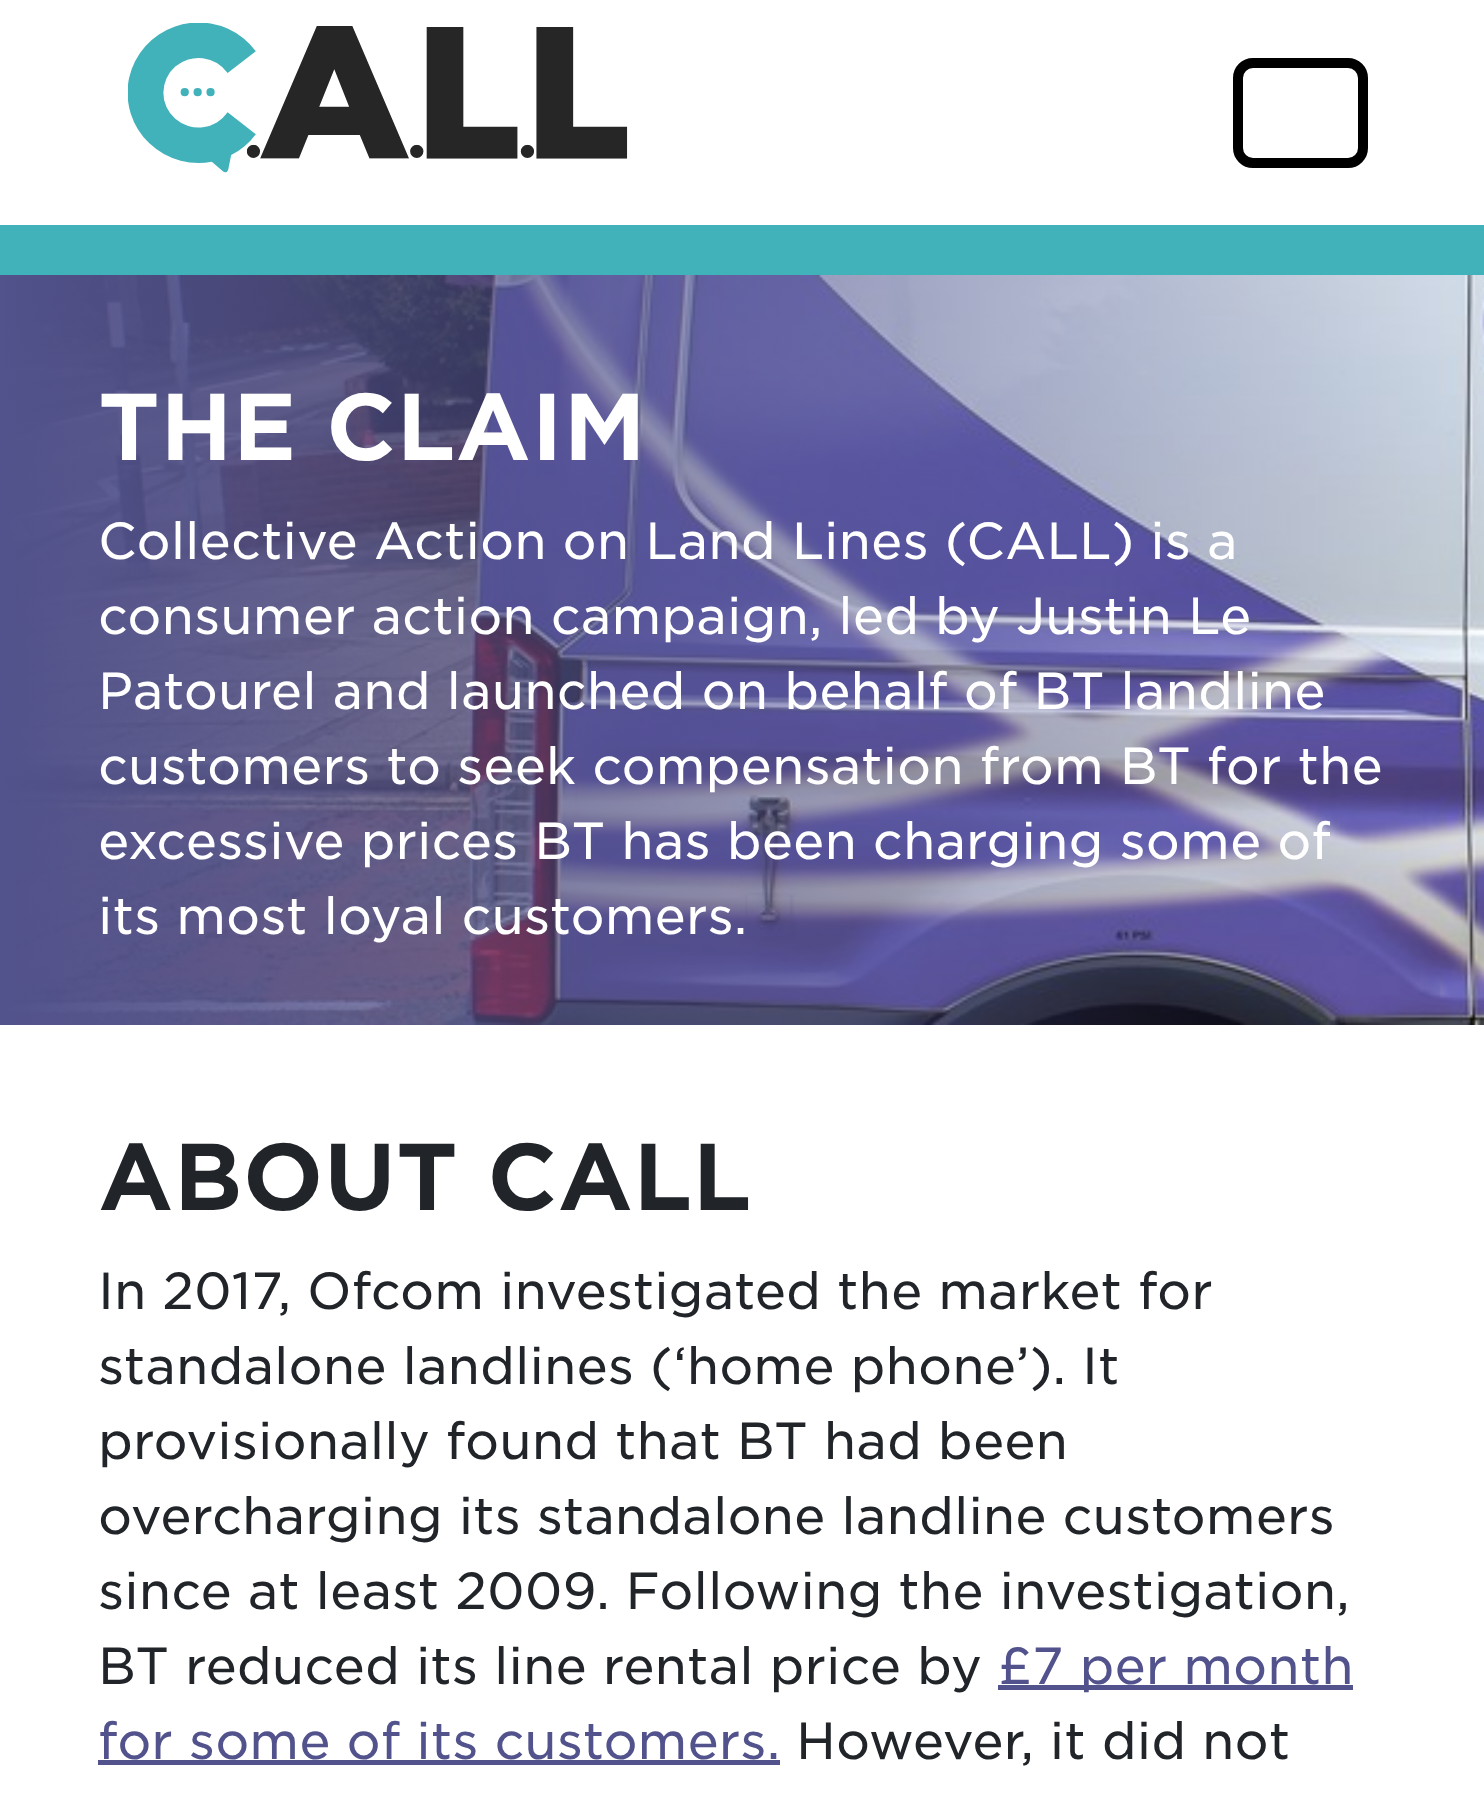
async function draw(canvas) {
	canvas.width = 1484;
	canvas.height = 1795;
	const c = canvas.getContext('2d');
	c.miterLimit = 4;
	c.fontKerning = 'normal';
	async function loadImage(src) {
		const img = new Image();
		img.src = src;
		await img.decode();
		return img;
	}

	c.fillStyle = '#fff';
	c.fillRect(0, 0, 1484, 1795);
	c.fillStyle = '#41b2ba';
	c.fillRect(0, 225, 1484, 50);
	c.drawImage(await loadImage('img1.png'), 128, 23, 500, 150);
	c.beginPath();
	c.roundRect(1238, 63, 125, 100, 15);
	c.strokeStyle = '#000';
	c.lineWidth = 10;
	c.stroke();
	c.drawImage(await loadImage('img2.png'), 0, 275, 1484, 750);
	c.font = 'bold 91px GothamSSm';
	c.fillStyle = '#fff';
	c.fillText('THE CLAIM', 98, 460);
	c.font = '50px GothamSSm';
	for (const [text, x, y] of [
		['Collective Action on Land Lines (CALL) is a', 98, 559],
		['consumer action campaign, led by Justin Le', 98, 634],
		['Patourel and launched on behalf of BT landline', 98, 709],
		['customers to seek compensation from BT for the', 98, 784],
		['excessive prices BT has been charging some of', 98, 859],
		['its most loyal customers.', 98, 934],
	]) {
		c.fillText(text, x, y);
	}
	c.font = 'bold 91px GothamSSm';
	c.fillStyle = '#212529';
	c.fillText('ABOUT CALL', 98, 1210);
	c.font = '50px GothamSSm';
	for (const [text, x, y] of [
		['In 2017, Ofcom investigated the market for', 98, 1309],
		['standalone landlines (‘home phone’). It', 98, 1384],
		['provisionally found that BT had been', 98, 1459],
		['overcharging its standalone landline customers', 98, 1534],
		['since at least 2009. Following the investigation,', 98, 1609],
		['BT reduced its line rental price by', 98, 1684],
	]) {
		c.fillText(text, x, y);
	}
	c.fillStyle = '#52528c';
	c.fillRect(998, 1685, 355, 5);
	c.fillText('£7 per month', 998, 1684);
	c.fillText('for some of its customers.', 98, 1759);
	c.fillRect(98, 1760, 682, 5);
	c.fillStyle = '#212529';
	c.fillText('However, it did not', 796, 1759);
}

draw(document.querySelector('canvas'));
